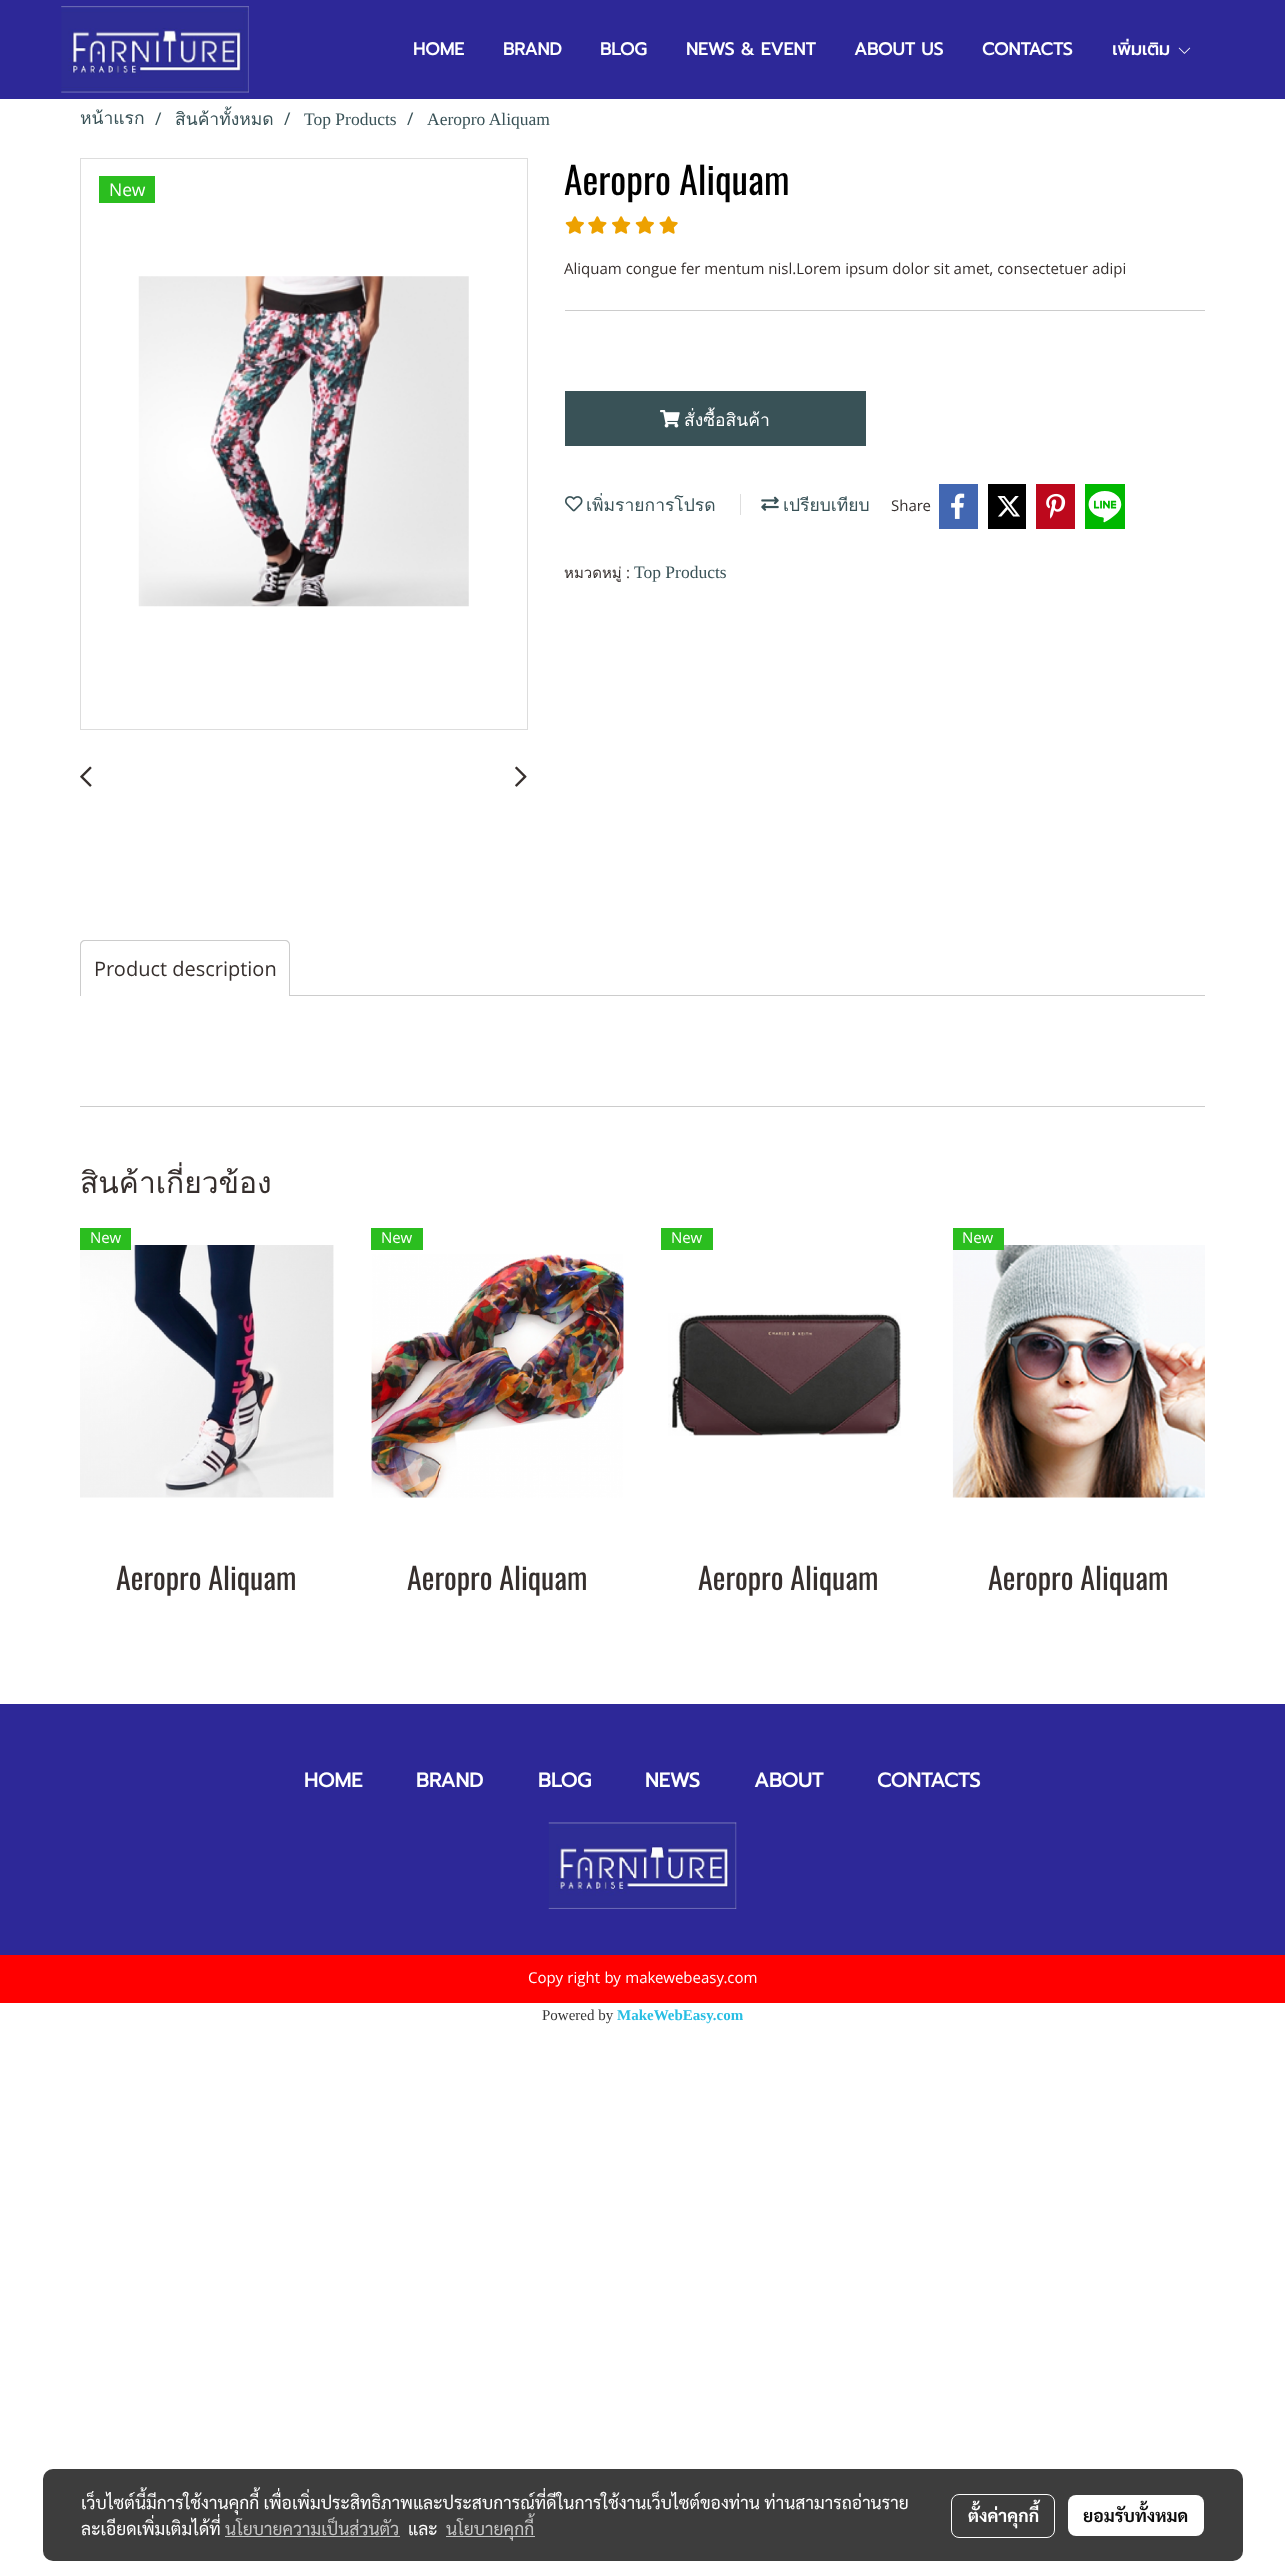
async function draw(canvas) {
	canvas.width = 1285;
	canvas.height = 2571;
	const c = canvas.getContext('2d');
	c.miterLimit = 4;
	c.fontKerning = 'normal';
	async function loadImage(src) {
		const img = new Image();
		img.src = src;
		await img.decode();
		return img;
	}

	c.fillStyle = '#fff';
	c.fillRect(0, 0, 1285, 2571);
	c.fillStyle = '#2d2898';
	c.fillRect(0, 0, 1285, 99);
	c.drawImage(await loadImage('img1.png'), 61, 6, 188, 87);
	c.font = 'bold 17.5px Prompt';
	c.fillStyle = '#fff';
	for (const [text, x, y] of [
		['HOME', 413, 55],
		['BRAND', 503, 55],
		['BLOG', 600, 55],
		['NEWS & EVENT', 686, 55],
		['ABOUT US', 854, 55],
		['CONTACTS', 982, 55],
		['เพิ่มเติม', 1112, 55],
	]) {
		c.fillText(text, x, y);
	}
	c.drawImage(await loadImage('img2.png'), 1178, 47, 13, 7);
	c.font = '17.5px Loma';
	c.fillStyle = '#395257';
	c.fillText('หน้าแรก', 80, 124);
	c.font = '17.5px Open Sans';
	c.fillText('/', 155, 125);
	c.font = '17.5px Loma';
	c.fillText('สินค้าทั้งหมด', 175, 125);
	c.font = '17.5px Open Sans';
	c.fillText('/', 284, 125);
	c.font = '17.5px Liberation Serif';
	c.fillText('Top Products', 304, 125);
	c.font = '17.5px Open Sans';
	c.fillText('/', 407, 125);
	c.font = '17.5px Liberation Serif';
	c.fillText('Aeropro Aliquam', 427, 125);
	c.strokeStyle = '#ddd';
	c.strokeRect(80.5, 158.5, 447, 571);
	c.drawImage(await loadImage('img3.png'), 138, 276, 331, 331);
	c.fillStyle = '#2bbe1f';
	c.fillRect(99, 176, 56, 27);
	c.font = '17.5px Open Sans';
	c.fillStyle = '#fff';
	c.fillText('New', 109, 196);
	c.drawImage(await loadImage('img4.png'), 80, 766, 12, 21);
	c.drawImage(await loadImage('img5.png'), 515, 766, 12, 21);
	c.font = '37.5px Oswald';
	c.fillStyle = '#000';
	c.fillText('Aeropro Aliquam', 564, 195);
	c.drawImage(await loadImage('img6.png'), 565, 216, 19, 18);
	c.drawImage(await loadImage('img7.png'), 588, 216, 19, 18);
	c.drawImage(await loadImage('img8.png'), 612, 216, 19, 18);
	c.drawImage(await loadImage('img6.png'), 635, 216, 19, 18);
	c.drawImage(await loadImage('img9.png'), 659, 216, 19, 18);
	c.font = '15px Open Sans';
	c.fillStyle = '#362f2d';
	c.fillText('Aliquam congue fer mentum nisl.Lorem ipsum dolor sit amet, consectetuer adipi', 564, 274);
	c.fillStyle = '#ccc';
	c.fillRect(565, 310, 640, 1);
	c.fillStyle = '#395257';
	c.fillRect(565, 391, 301, 55);
	c.font = '17.5px Loma';
	c.fillStyle = '#fff';
	c.fillText('สั่งซื้อสินค้า', 684, 426);
	c.drawImage(await loadImage('img10.png'), 660, 410, 20, 18);
	c.fillStyle = '#395257';
	c.fillText('เพิ่มรายการโปรด', 586, 511);
	c.drawImage(await loadImage('img11.png'), 565, 496, 18, 16);
	c.fillStyle = '#dedede';
	c.fillRect(740, 494, 1, 21);
	c.drawImage(await loadImage('img12.png'), 761, 496, 18, 15);
	c.fillStyle = '#395257';
	c.fillText('เปรียบเทียบ', 783, 511);
	c.font = '15px Open Sans';
	c.fillStyle = '#362f2d';
	c.fillText('Share', 891, 511);
	c.fillStyle = '#4267b2';
	c.fillRect(939, 484, 39, 45);
	c.drawImage(await loadImage('img13.png'), 951, 493, 14, 26);
	c.fillStyle = '#000';
	c.fillRect(988, 484, 38, 45);
	c.drawImage(await loadImage('img14.png'), 997, 496, 23, 21);
	c.fillStyle = '#bd081c';
	c.fillRect(1036, 484, 39, 45);
	c.drawImage(await loadImage('img15.png'), 1046, 493, 20, 26);
	c.fillStyle = '#00b800';
	c.fillRect(1085, 484, 40, 45);
	c.drawImage(await loadImage('img16.png'), 1088, 491, 34, 32);
	c.font = '15px Loma';
	c.fillStyle = '#362f2d';
	c.fillText('หมวดหมู่', 564, 578);
	c.font = '15px Open Sans';
	c.fillText(':', 626, 578);
	c.font = '17.5px Liberation Serif';
	c.fillStyle = '#395257';
	c.fillText('Top Products', 634, 578);
	c.fillStyle = '#ccc';
	c.beginPath();
	c.moveTo(85, 940);
	c.lineTo(285, 940);
	c.bezierCurveTo(288, 940, 290, 942, 290, 945);
	c.lineTo(290, 996);
	c.lineTo(80, 996);
	c.lineTo(80, 945);
	c.bezierCurveTo(80, 942, 82, 940, 85, 940);
	c.closePath();
	c.moveTo(85, 941);
	c.lineTo(285, 941);
	c.bezierCurveTo(287, 941, 289, 943, 289, 945);
	c.lineTo(289, 996);
	c.lineTo(81, 996);
	c.lineTo(81, 945);
	c.bezierCurveTo(81, 943, 83, 941, 85, 941);
	c.closePath();
	c.fill('evenodd');
	c.font = '20px Open Sans';
	c.fillStyle = '#362f2d';
	c.fillText('Product description', 94, 976);
	c.fillStyle = '#ccc';
	c.fillRect(290, 995, 915, 1);
	c.fillRect(80, 1106, 1125, 1);
	c.font = '30px Loma';
	c.fillStyle = '#362f2d';
	c.fillText('สินค้าเกี่ยวข้อง', 80, 1193);
	c.drawImage(await loadImage('img17.png'), 80, 1245, 254, 253);
	c.fillStyle = '#2bbe1f';
	c.fillRect(80, 1228, 51, 22);
	c.font = '15px Open Sans';
	c.fillStyle = '#fff';
	c.fillText('New', 90, 1243);
	c.font = '30px Oswald';
	c.fillStyle = '#362f2d';
	c.fillText('Aeropro Aliquam', 116, 1590);
	c.fillStyle = '#2bbe1f';
	c.fillRect(371, 1228, 52, 22);
	c.font = '15px Open Sans';
	c.fillStyle = '#fff';
	c.fillText('New', 381, 1243);
	c.drawImage(await loadImage('img18.png'), 371, 1254, 253, 244);
	c.font = '30px Oswald';
	c.fillStyle = '#362f2d';
	c.fillText('Aeropro Aliquam', 407, 1590);
	c.fillStyle = '#2bbe1f';
	c.fillRect(661, 1228, 52, 22);
	c.font = '15px Open Sans';
	c.fillStyle = '#fff';
	c.fillText('New', 671, 1243);
	c.drawImage(await loadImage('img19.png'), 668, 1313, 233, 123);
	c.font = '30px Oswald';
	c.fillStyle = '#362f2d';
	c.fillText('Aeropro Aliquam', 698, 1590);
	c.drawImage(await loadImage('img20.png'), 952, 1245, 253, 253);
	c.fillStyle = '#2bbe1f';
	c.fillRect(953, 1228, 51, 22);
	c.font = '15px Open Sans';
	c.fillStyle = '#fff';
	c.fillText('New', 962, 1243);
	c.font = '30px Oswald';
	c.fillStyle = '#362f2d';
	c.fillText('Aeropro Aliquam', 988, 1590);
	c.fillStyle = '#2d2898';
	c.fillRect(0, 1704, 1285, 251);
	c.font = 'bold 20px Prompt';
	c.fillStyle = '#fff';
	for (const [text, x, y] of [
		['HOME', 304, 1787],
		['BRAND', 416, 1787],
		['BLOG', 538, 1787],
		['NEWS', 645, 1787],
		['ABOUT', 754, 1787],
		['CONTACTS', 877, 1787],
	]) {
		c.fillText(text, x, y);
	}
	c.drawImage(await loadImage('img21.png'), 548, 1822, 189, 87);
	c.fillStyle = '#f00';
	c.fillRect(0, 1955, 1285, 48);
	c.wordSpacing = '0.5px';
	c.font = '15px Open Sans';
	c.fillStyle = '#fff';
	c.fillText('Copy right by makewebeasy.com', 528, 1983);
	c.wordSpacing = '0px';
	c.font = '15px Liberation Serif';
	c.fillStyle = '#353535';
	c.fillText('Powered by', 542, 2020);
	c.font = 'bold 15px Liberation Serif';
	c.fillStyle = '#28bee3';
	c.fillText('MakeWebEasy.com', 617, 2020);
	c.fillStyle = '#3d3d3d';
	c.beginPath();
	c.roundRect(43, 2469, 1200, 92, 10);
	c.fill();
	c.font = '17.5px Sarabun';
	c.fillStyle = '#fff';
	c.fillText('เว็บไซต์นี้มีการใช้งานคุกกี้ เพื่อเพิ่มประสิทธิภาพและประสบการณ์ที่ดีในการใช้งานเว็บไซต์ของท่าน ท่านสามารถอ่านราย', 81, 2509);
	c.fillText('ละเอียดเพิ่มเติมได้ที่', 81, 2535);
	c.fillStyle = '#c5c5c5';
	c.fillText('นโยบายความเป็นส่วนตัว', 225, 2535);
	c.fillRect(225, 2536, 175, 1);
	c.fillStyle = '#fff';
	c.fillText('และ', 408, 2535);
	c.fillStyle = '#c5c5c5';
	c.fillRect(446, 2536, 89, 1);
	c.fillText('นโยบายคุกกี้', 446, 2535);
	c.beginPath();
	c.roundRect(951.5, 2494.5, 103, 43, 7.5);
	c.strokeStyle = '#fff';
	c.stroke();
	c.font = 'bold 17.5px Sarabun';
	c.fillStyle = '#fff';
	c.fillText('ตั้งค่าคุกกี้', 968, 2522);
	c.beginPath();
	c.roundRect(1068, 2495, 136, 41, 8);
	c.fill();
	c.fillStyle = '#0d0d0d';
	c.fillText('ยอมรับทั้งหมด', 1083, 2522);
}

draw(document.querySelector('canvas'));
